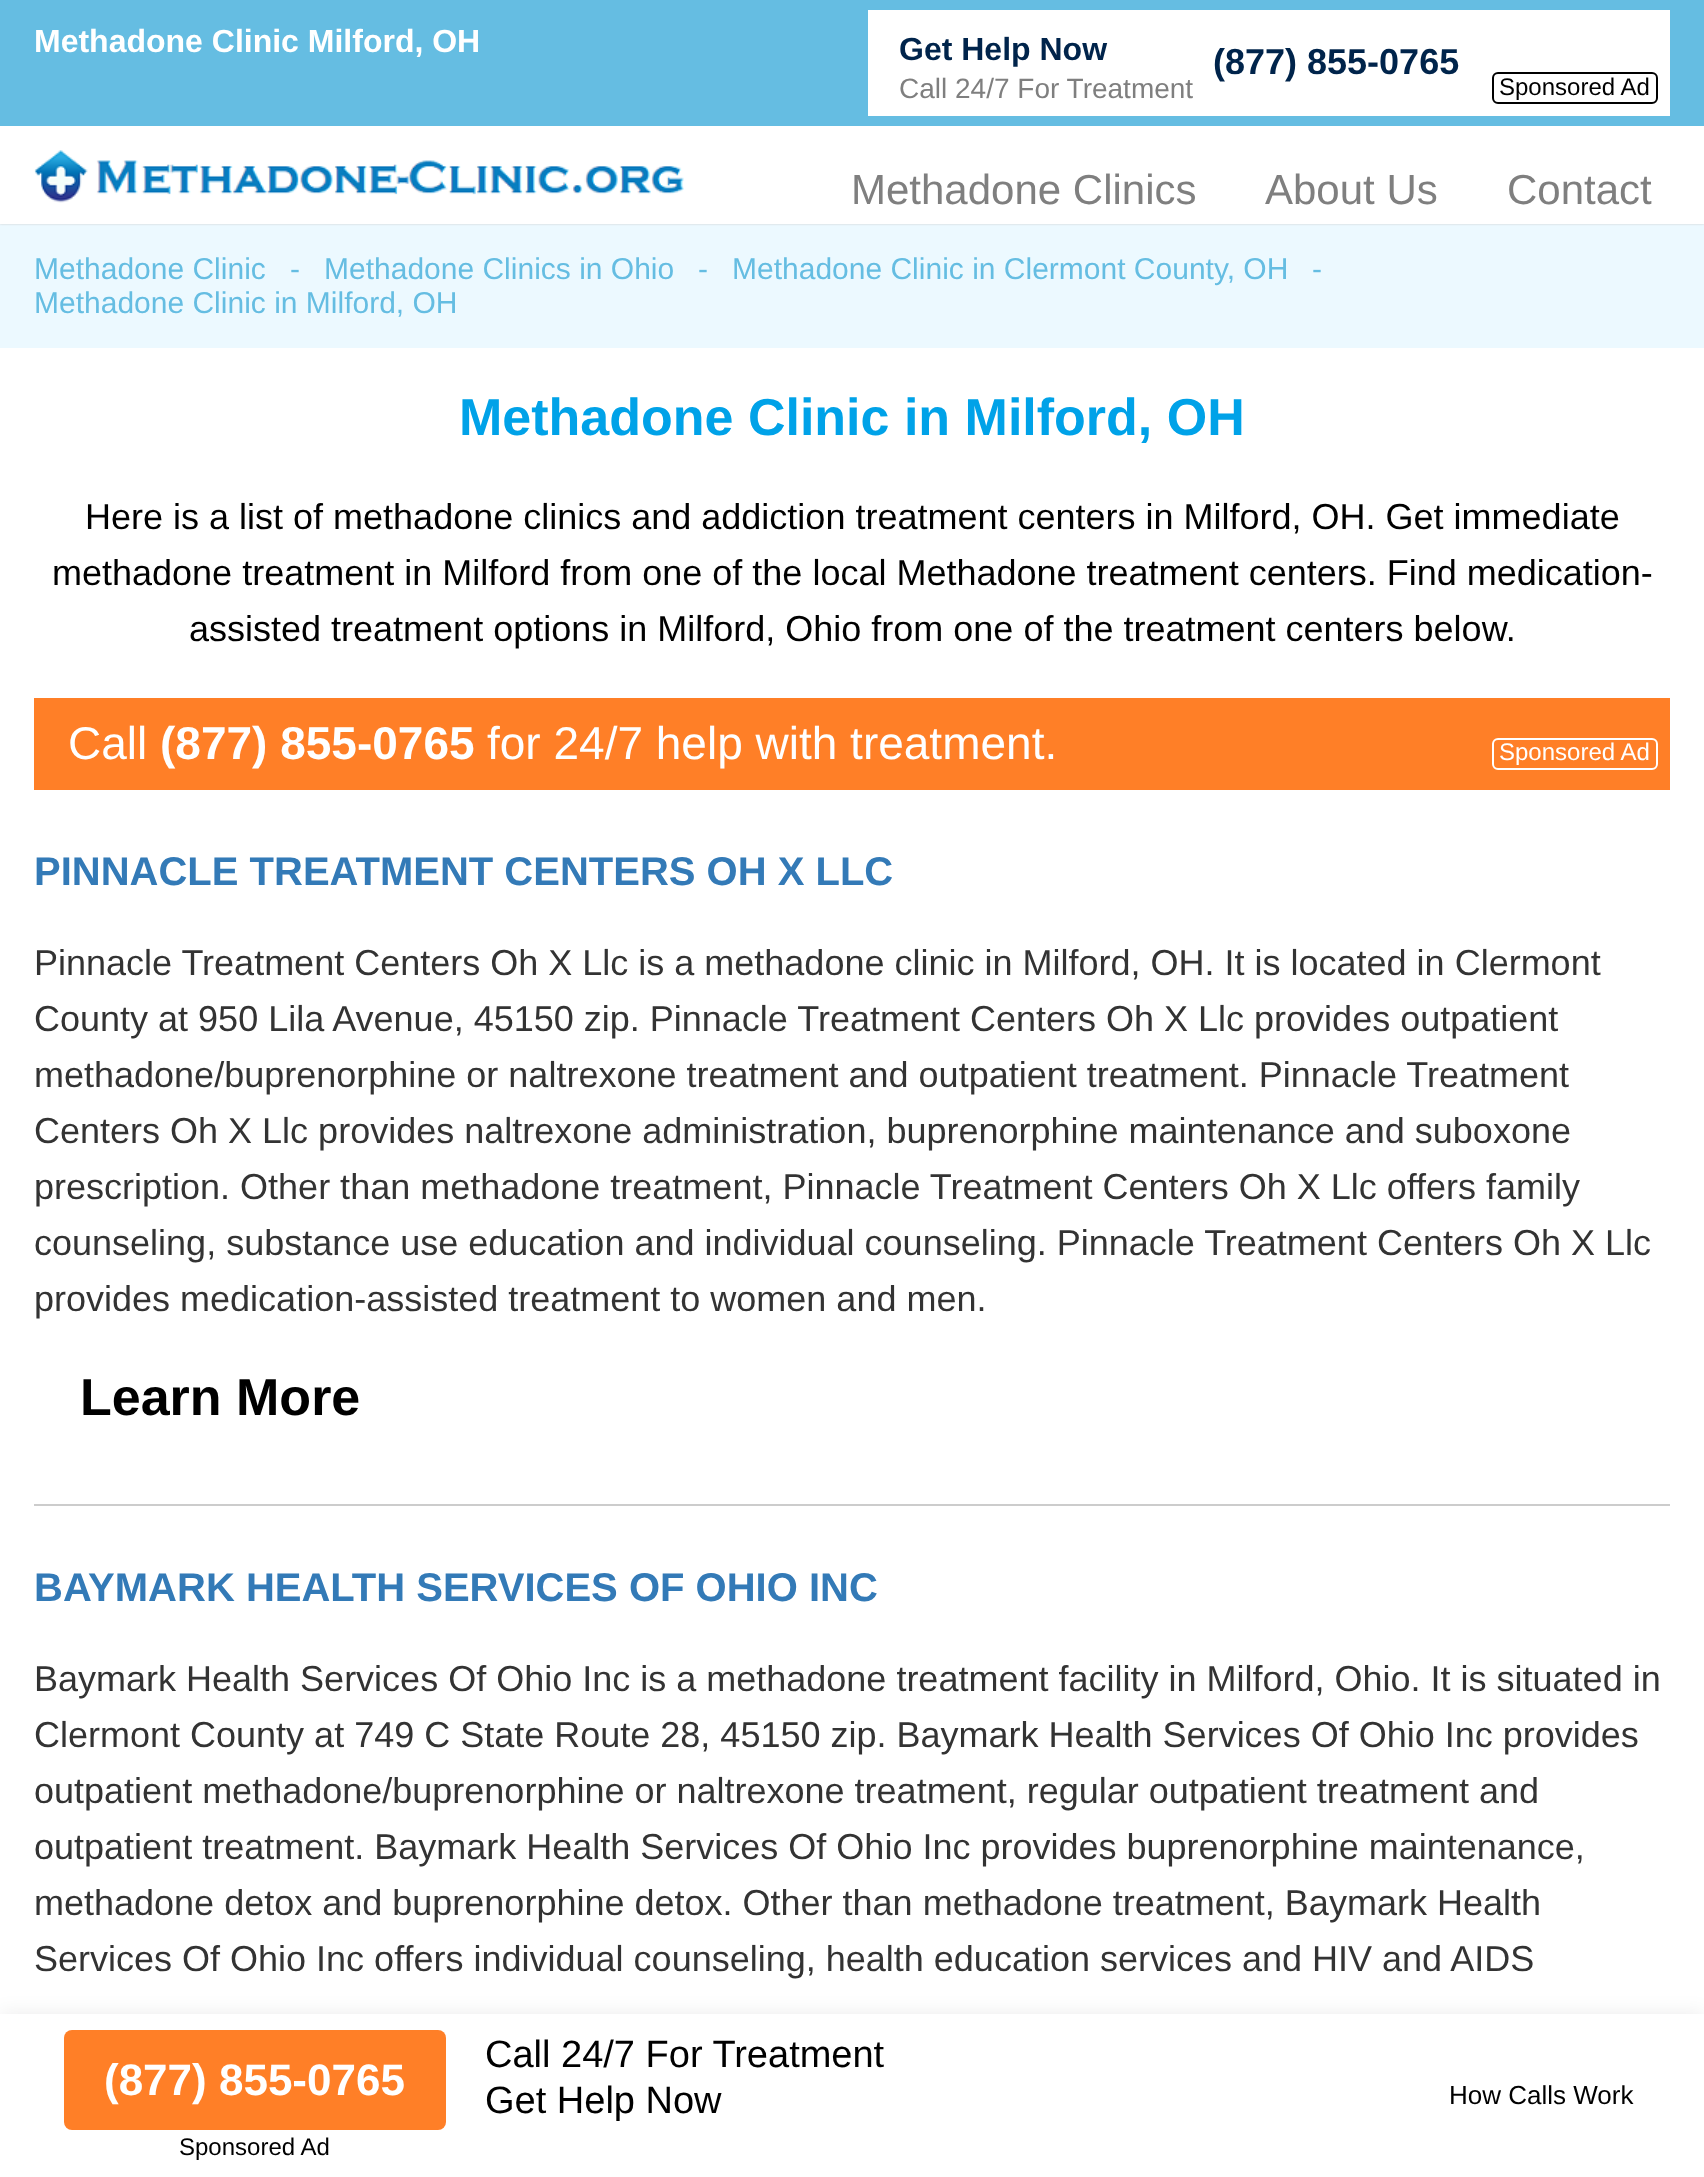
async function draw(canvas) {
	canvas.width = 1704;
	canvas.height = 2177;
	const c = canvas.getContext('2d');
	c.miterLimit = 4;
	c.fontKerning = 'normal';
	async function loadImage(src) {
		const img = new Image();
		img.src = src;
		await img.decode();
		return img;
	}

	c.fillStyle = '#fff';
	c.fillRect(0, 0, 1704, 2177);
	c.fillStyle = '#ecf9ff';
	c.fillRect(0, 224, 1704, 124);
	c.save();
	c.beginPath();
	c.rect(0, 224, 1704, 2);
	c.clip();
	c.fillStyle = '#ccc';
	c.filter = 'blur(1px)';
	c.beginPath();
	c.rect(0, 126, 1704, 98);
	c.fill();
	c.filter = 'none';
	c.restore();
	c.fillStyle = '#65bde2';
	c.fillRect(0, 0, 1704, 126);
	c.font = 'bold 32px Liberation Sans';
	c.fillStyle = '#fff';
	c.fillText('Methadone Clinic Milford, OH', 34, 52);
	c.fillRect(868, 10, 802, 106);
	c.fillStyle = '#00244b';
	c.fillText('Get Help Now', 899, 60);
	c.font = '28px Liberation Sans';
	c.fillStyle = '#7f7f7f';
	c.fillText('Call 24/7 For Treatment', 899, 98);
	c.font = 'bold 36px Liberation Sans';
	c.fillStyle = '#00244b';
	c.fillText('(877) 855-0765', 1213, 74);
	c.beginPath();
	c.roundRect(1493, 73, 164, 30, 5);
	c.strokeStyle = '#000';
	c.lineWidth = 2;
	c.stroke();
	c.font = '24px Liberation Sans';
	c.fillStyle = '#000';
	c.fillText('Sponsored Ad', 1499, 95);
	c.drawImage(await loadImage('img1.png'), 34, 150, 650, 53);
	c.font = '42px Liberation Sans';
	c.fillStyle = '#7f7f7f';
	for (const [text, x, y] of [
		['Methadone Clinics', 851, 204],
		['About Us', 1265, 204],
		['Contact', 1507, 204],
	]) {
		c.fillText(text, x, y);
	}
	c.font = '30px Liberation Sans';
	c.fillStyle = '#65bde2';
	for (const [text, x, y] of [
		['Methadone Clinic', 34, 279],
		['-', 290, 279],
		['Methadone Clinics in Ohio', 324, 279],
		['-', 698, 279],
		['Methadone Clinic in Clermont County, OH', 732, 279],
		['-', 1312, 279],
		['Methadone Clinic in Milford, OH', 34, 313],
	]) {
		c.fillText(text, x, y);
	}
	c.font = 'bold 52px Liberation Sans';
	c.fillStyle = '#00a2e8';
	c.fillText('Methadone Clinic in Milford, OH', 459, 435);
	c.font = '36px Liberation Sans';
	c.fillStyle = '#000';
	for (const [text, x, y] of [
		['Here is a list of methadone clinics and addiction treatment centers in Milford, OH. Get immediate', 85, 529],
		['methadone treatment in Milford from one of the local Methadone treatment centers. Find medication-', 52, 585],
		['assisted treatment options in Milford, Ohio from one of the treatment centers below.', 189, 641],
	]) {
		c.fillText(text, x, y);
	}
	c.fillStyle = '#ff7f27';
	c.fillRect(34, 698, 1636, 92);
	c.font = '46px Liberation Sans';
	c.fillStyle = '#fff';
	c.fillText('Call', 68, 759);
	c.font = 'bold 46px Liberation Sans';
	c.fillText('(877) 855-0765', 160, 759);
	c.font = '46px Liberation Sans';
	c.fillText('for 24/7 help with treatment.', 487, 759);
	c.beginPath();
	c.roundRect(1493, 739, 164, 30, 5);
	c.strokeStyle = '#fff';
	c.stroke();
	c.font = '24px Liberation Sans';
	c.fillText('Sponsored Ad', 1499, 760);
	c.fillStyle = '#ccc';
	c.fillRect(34, 1504, 1636, 2);
	c.font = 'bold 40px Liberation Sans';
	c.fillStyle = '#337ab7';
	c.fillText('PINNACLE TREATMENT CENTERS OH X LLC', 34, 885);
	c.font = '36px Liberation Sans';
	c.fillStyle = '#333';
	for (const [text, x, y] of [
		['Pinnacle Treatment Centers Oh X Llc is a methadone clinic in Milford, OH. It is located in Clermont', 34, 975],
		['County at 950 Lila Avenue, 45150 zip. Pinnacle Treatment Centers Oh X Llc provides outpatient', 34, 1031],
		['methadone/buprenorphine or naltrexone treatment and outpatient treatment. Pinnacle Treatment', 34, 1087],
		['Centers Oh X Llc provides naltrexone administration, buprenorphine maintenance and suboxone', 34, 1143],
		['prescription. Other than methadone treatment, Pinnacle Treatment Centers Oh X Llc offers family', 34, 1199],
		['counseling, substance use education and individual counseling. Pinnacle Treatment Centers Oh X Llc', 34, 1255],
		['provides medication-assisted treatment to women and men.', 34, 1311],
	]) {
		c.fillText(text, x, y);
	}
	c.font = 'bold 52px Liberation Sans';
	c.fillStyle = '#000';
	c.fillText('Learn More', 80, 1415);
	c.font = 'bold 40px Liberation Sans';
	c.fillStyle = '#337ab7';
	c.fillText('BAYMARK HEALTH SERVICES OF OHIO INC', 34, 1601);
	c.font = '36px Liberation Sans';
	c.fillStyle = '#333';
	for (const [text, x, y] of [
		['Baymark Health Services Of Ohio Inc is a methadone treatment facility in Milford, Ohio. It is situated in', 34, 1691],
		['Clermont County at 749 C State Route 28, 45150 zip. Baymark Health Services Of Ohio Inc provides', 34, 1747],
		['outpatient methadone/buprenorphine or naltrexone treatment, regular outpatient treatment and', 34, 1803],
		['outpatient treatment. Baymark Health Services Of Ohio Inc provides buprenorphine maintenance,', 34, 1859],
		['methadone detox and buprenorphine detox. Other than methadone treatment, Baymark Health', 34, 1915],
		['Services Of Ohio Inc offers individual counseling, health education services and HIV and AIDS', 34, 1971],
	]) {
		c.fillText(text, x, y);
	}
	c.fillStyle = '#00000014';
	c.filter = 'blur(10px)';
	c.beginPath();
	c.rect(0, 2014, 1704, 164);
	c.fill();
	c.filter = 'none';
	c.fillStyle = '#fff';
	c.fillRect(0, 2014, 1704, 163);
	c.fillStyle = '#ff7f27';
	c.beginPath();
	c.roundRect(64, 2030, 382, 100, 8);
	c.fill();
	c.font = 'bold 44px Liberation Sans';
	c.fillStyle = '#fff';
	c.fillText('(877) 855-0765', 104, 2095);
	c.font = '24px Liberation Sans';
	c.fillStyle = '#000';
	c.fillText('Sponsored Ad', 179, 2155);
	c.font = '38px Liberation Sans';
	c.fillText('Call 24/7 For Treatment', 485, 2067);
	c.fillText('Get Help Now', 485, 2113);
	c.font = '26px Liberation Sans';
	c.fillText('How Calls Work', 1449, 2104);
}

draw(document.querySelector('canvas'));
